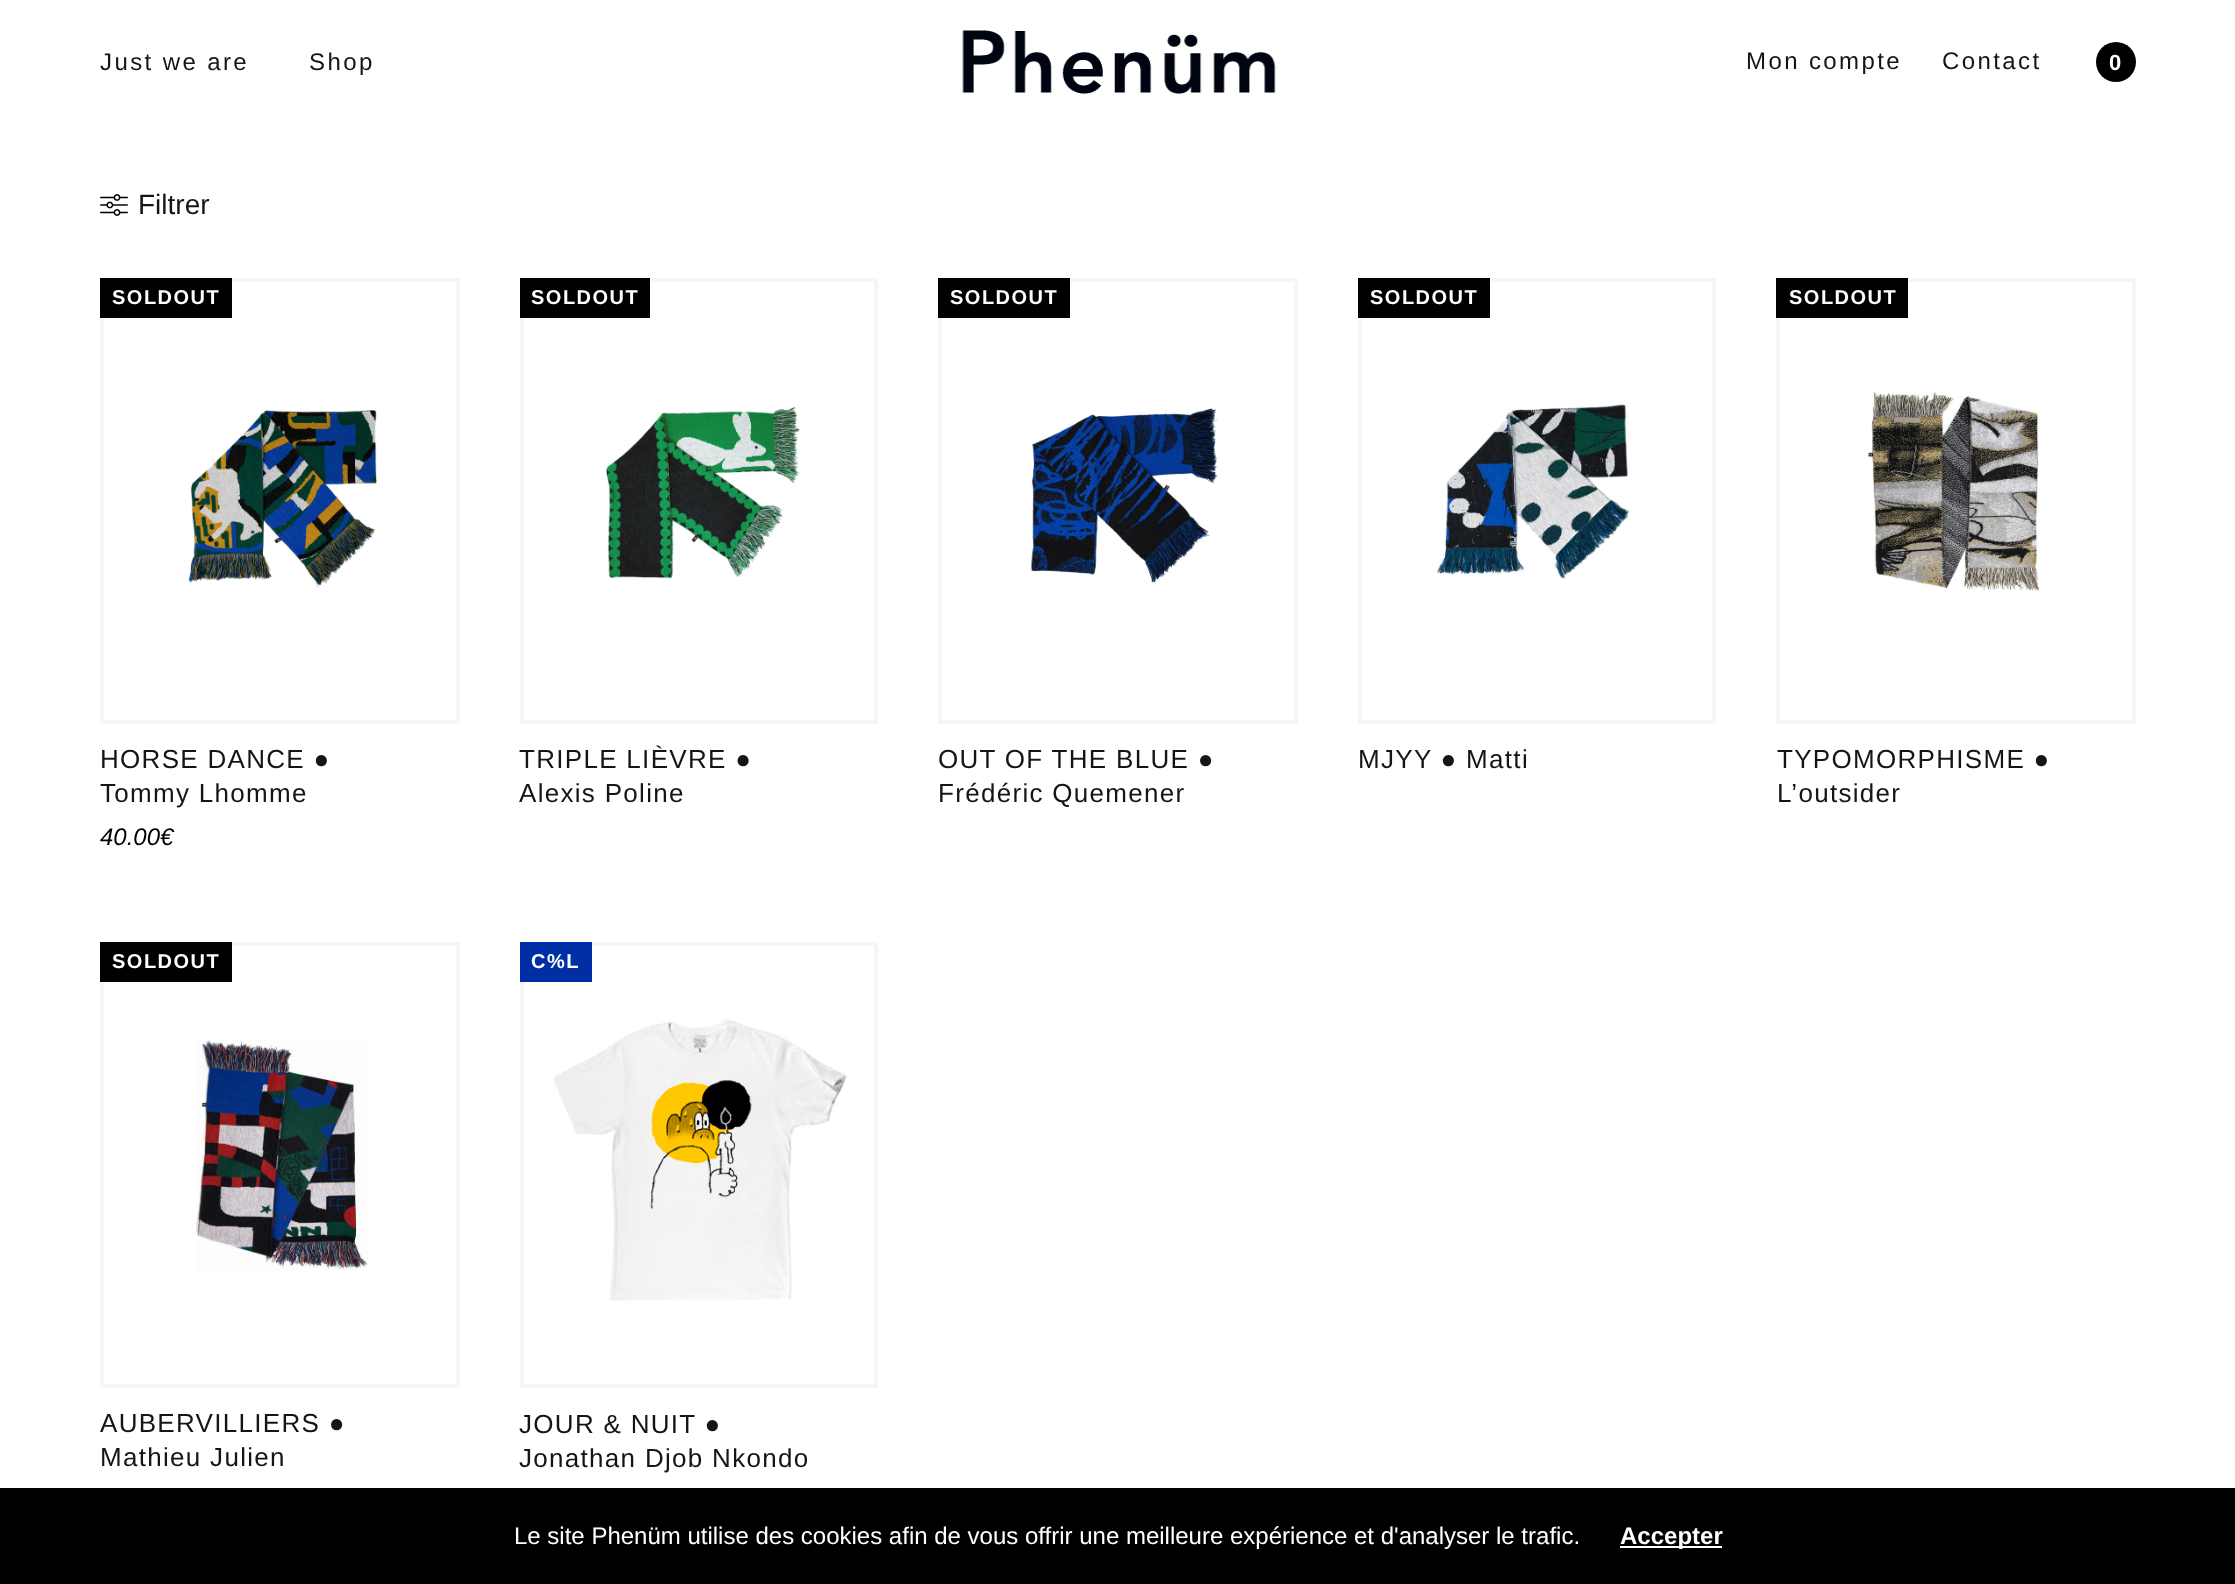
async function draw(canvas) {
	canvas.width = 2235;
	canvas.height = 1584;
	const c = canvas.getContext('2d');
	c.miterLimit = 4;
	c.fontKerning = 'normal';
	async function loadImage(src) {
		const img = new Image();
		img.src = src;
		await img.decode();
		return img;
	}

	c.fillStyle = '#fff';
	c.fillRect(0, 0, 2235, 1584);
	c.letterSpacing = '2.4px';
	c.font = '24px Liberation Sans';
	c.fillStyle = '#151515';
	c.fillText('Just we are', 100, 70);
	c.fillText('Shop', 309, 70);
	c.drawImage(await loadImage('img1.png'), 962, 30, 314, 64);
	c.fillText('Mon compte', 1746, 69);
	c.fillText('Contact', 1942, 69);
	c.fillStyle = '#000';
	c.beginPath();
	c.arc(2116, 62, 20, 0, 2 * Math.PI);
	c.fill();
	c.font = 'bold 22px Liberation Sans';
	c.fillStyle = '#fff';
	c.fillText('0', 2109, 70);
	c.drawImage(await loadImage('img2.png'), 100, 194, 28, 22);
	c.letterSpacing = '0px';
	c.font = '28px Liberation Sans';
	c.fillStyle = '#151515';
	c.fillText('Filtrer', 138, 214);
	c.strokeStyle = '#f7f6f7';
	c.lineWidth = 4;
	c.strokeRect(102, 280, 356, 442);
	c.drawImage(await loadImage('img3.png'), 188, 410, 189, 178);
	c.fillStyle = '#000';
	c.fillRect(100, 278, 132, 40);
	c.letterSpacing = '1.5px';
	c.font = 'bold 20px Liberation Sans';
	c.fillStyle = '#fff';
	c.fillText('SOLDOUT', 112, 304);
	c.letterSpacing = '1.3px';
	c.font = '26px Liberation Sans';
	c.fillStyle = '#151515';
	c.fillText('HORSE DANCE ●', 100, 768);
	c.fillText('Tommy Lhomme', 100, 802);
	c.letterSpacing = '0px';
	c.font = 'italic 24px Liberation Sans';
	c.fillStyle = '#000';
	c.fillText('40.00€', 100, 845);
	c.strokeRect(522, 280, 354, 442);
	c.drawImage(await loadImage('img4.png'), 606, 406, 195, 173);
	c.fillRect(520, 278, 130, 40);
	c.letterSpacing = '1.5px';
	c.font = 'bold 20px Liberation Sans';
	c.fillStyle = '#fff';
	c.fillText('SOLDOUT', 531, 304);
	c.letterSpacing = '1.3px';
	c.font = '26px Liberation Sans';
	c.fillStyle = '#151515';
	c.fillText('TRIPLE LIÈVRE ●', 519, 768);
	c.fillText('Alexis Poline', 519, 802);
	c.strokeRect(940, 280, 356, 442);
	c.drawImage(await loadImage('img5.png'), 1030, 408, 188, 176);
	c.fillStyle = '#000';
	c.fillRect(938, 278, 132, 40);
	c.letterSpacing = '1.5px';
	c.font = 'bold 20px Liberation Sans';
	c.fillStyle = '#fff';
	c.fillText('SOLDOUT', 950, 304);
	c.letterSpacing = '1.3px';
	c.font = '26px Liberation Sans';
	c.fillStyle = '#151515';
	c.fillText('OUT OF THE BLUE ●', 938, 768);
	c.fillText('Frédéric Quemener', 938, 802);
	c.strokeRect(1360, 280, 354, 442);
	c.drawImage(await loadImage('img6.png'), 1436, 404, 194, 176);
	c.fillStyle = '#000';
	c.fillRect(1358, 278, 132, 40);
	c.letterSpacing = '1.5px';
	c.font = 'bold 20px Liberation Sans';
	c.fillStyle = '#fff';
	c.fillText('SOLDOUT', 1370, 304);
	c.letterSpacing = '1.3px';
	c.font = '26px Liberation Sans';
	c.fillStyle = '#151515';
	c.fillText('MJYY ● Matti', 1358, 768);
	c.strokeRect(1778, 280, 356, 442);
	c.drawImage(await loadImage('img7.png'), 1867, 391, 173, 201);
	c.fillStyle = '#000';
	c.fillRect(1776, 278, 132, 40);
	c.letterSpacing = '1.5px';
	c.font = 'bold 20px Liberation Sans';
	c.fillStyle = '#fff';
	c.fillText('SOLDOUT', 1789, 304);
	c.letterSpacing = '1.3px';
	c.font = '26px Liberation Sans';
	c.fillStyle = '#151515';
	c.fillText('TYPOMORPHISME ●', 1777, 768);
	c.fillText('L’outsider', 1777, 802);
	c.strokeRect(102, 944, 356, 442);
	c.drawImage(await loadImage('img8.png'), 196, 1040, 172, 231);
	c.fillStyle = '#000';
	c.fillRect(100, 942, 132, 40);
	c.letterSpacing = '1.5px';
	c.font = 'bold 20px Liberation Sans';
	c.fillStyle = '#fff';
	c.fillText('SOLDOUT', 112, 968);
	c.letterSpacing = '1.3px';
	c.font = '26px Liberation Sans';
	c.fillStyle = '#151515';
	c.fillText('AUBERVILLIERS ●', 100, 1432);
	c.fillText('Mathieu Julien', 100, 1466);
	c.strokeRect(522, 944, 354, 442);
	c.drawImage(await loadImage('img9.png'), 553, 1019, 294, 282);
	c.fillStyle = '#002ea5';
	c.fillRect(520, 942, 72, 40);
	c.letterSpacing = '1.5px';
	c.font = 'bold 20px Liberation Sans';
	c.fillStyle = '#fff';
	c.fillText('C%L', 531, 968);
	c.letterSpacing = '1.3px';
	c.font = '26px Liberation Sans';
	c.fillStyle = '#151515';
	c.fillText('JOUR & NUIT ●', 519, 1433);
	c.fillText('Jonathan Djob Nkondo', 519, 1467);
	c.fillStyle = '#000';
	c.fillRect(0, 1488, 2235, 96);
	c.letterSpacing = '0px';
	c.font = '24px Liberation Sans';
	c.fillStyle = '#fff';
	c.fillText('Le site Phenüm utilise des cookies afin de vous offrir une meilleure expérience et d\'analyser le trafic.', 514, 1544);
	c.fillRect(1620, 1546, 102, 2);
	c.font = 'bold 24px Liberation Sans';
	c.fillText('Accepter', 1620, 1544);
}

draw(document.querySelector('canvas'));
